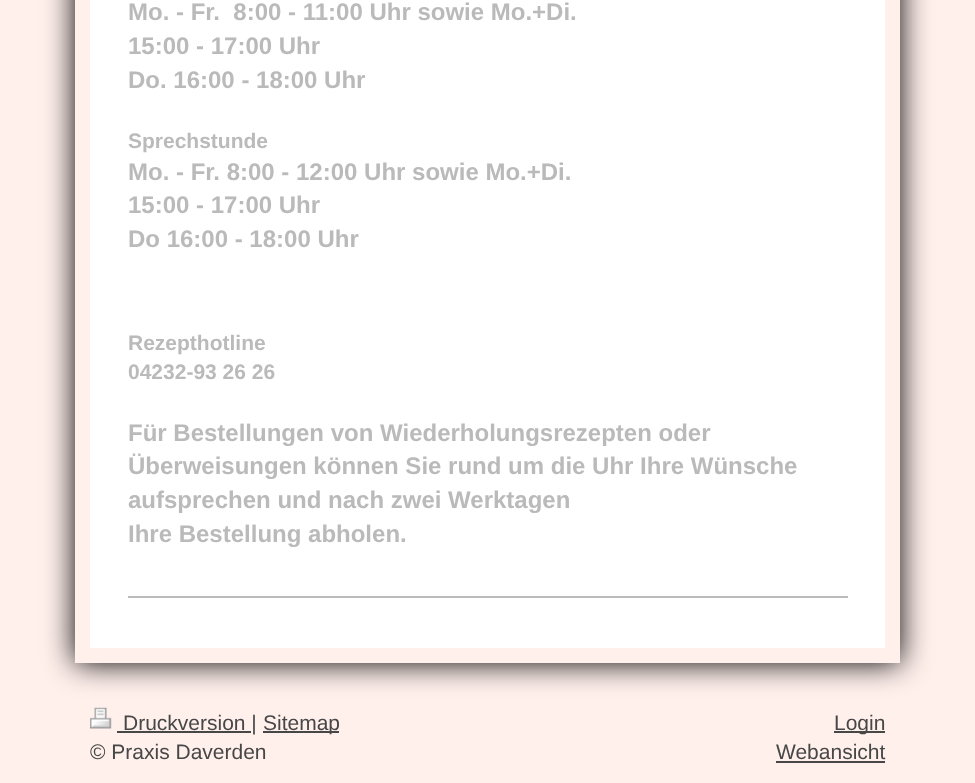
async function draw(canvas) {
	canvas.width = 975;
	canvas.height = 783;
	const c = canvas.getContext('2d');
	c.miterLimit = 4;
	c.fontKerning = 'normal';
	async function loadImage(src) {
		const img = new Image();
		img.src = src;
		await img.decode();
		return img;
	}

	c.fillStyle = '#fff0ec';
	c.fillRect(0, 0, 975, 783);
	c.save();
	c.beginPath();
	c.moveTo(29, 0);
	c.lineTo(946, 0);
	c.lineTo(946, 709);
	c.lineTo(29, 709);
	c.closePath();
	c.moveTo(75, -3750);
	c.lineTo(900, -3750);
	c.lineTo(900, 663);
	c.lineTo(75, 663);
	c.closePath();
	c.clip('evenodd');
	c.fillStyle = '#000';
	c.filter = 'blur(15px)';
	c.beginPath();
	c.rect(75, -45, 825, 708);
	c.fill();
	c.filter = 'none';
	c.restore();
	c.fillStyle = '#fff';
	c.fillRect(90, 0, 795, 648);
	c.font = 'bold 24px Liberation Sans';
	c.fillStyle = '#bababa';
	for (const [text, x, y] of [
		['Mo. - Fr.  8:00 - 11:00 Uhr sowie Mo.+Di.', 128, 20],
		['15:00 - 17:00 Uhr', 128, 54],
		['Do. 16:00 - 18:00 Uhr', 128, 88],
	]) {
		c.fillText(text, x, y);
	}
	c.font = 'bold 21px Liberation Sans';
	c.fillText('Sprechstunde', 128, 148);
	c.font = 'bold 24px Liberation Sans';
	for (const [text, x, y] of [
		['Mo. - Fr. 8:00 - 12:00 Uhr sowie Mo.+Di.', 128, 180],
		['15:00 - 17:00 Uhr', 128, 213],
		['Do 16:00 - 18:00 Uhr', 128, 247],
	]) {
		c.fillText(text, x, y);
	}
	c.font = 'bold 21px Liberation Sans';
	c.fillText('Rezepthotline', 128, 350);
	c.fillText('04232-93 26 26', 128, 379);
	c.font = 'bold 24px Liberation Sans';
	for (const [text, x, y] of [
		['Für Bestellungen von Wiederholungsrezepten oder', 128, 441],
		['Überweisungen können Sie rund um die Uhr Ihre Wünsche', 128, 474],
		['aufsprechen und nach zwei Werktagen', 128, 508],
		['Ihre Bestellung abholen.', 128, 542],
	]) {
		c.fillText(text, x, y);
	}
	c.fillRect(128, 596, 720, 2);
	c.drawImage(await loadImage('img1.png'), 90, 707, 22, 22);
	c.fillStyle = '#474747';
	c.fillRect(117, 731, 134, 2);
	c.font = '21px Liberation Sans';
	c.fillText('Druckversion |', 123, 730);
	c.fillRect(263, 731, 76, 2);
	c.fillText('Sitemap', 263, 730);
	c.fillText('© Praxis Daverden', 90, 759);
	c.fillRect(834, 731, 51, 2);
	c.fillText('Login', 834, 730);
	c.fillText('Webansicht', 776, 759);
	c.fillRect(776, 761, 109, 2);
}

draw(document.querySelector('canvas'));
